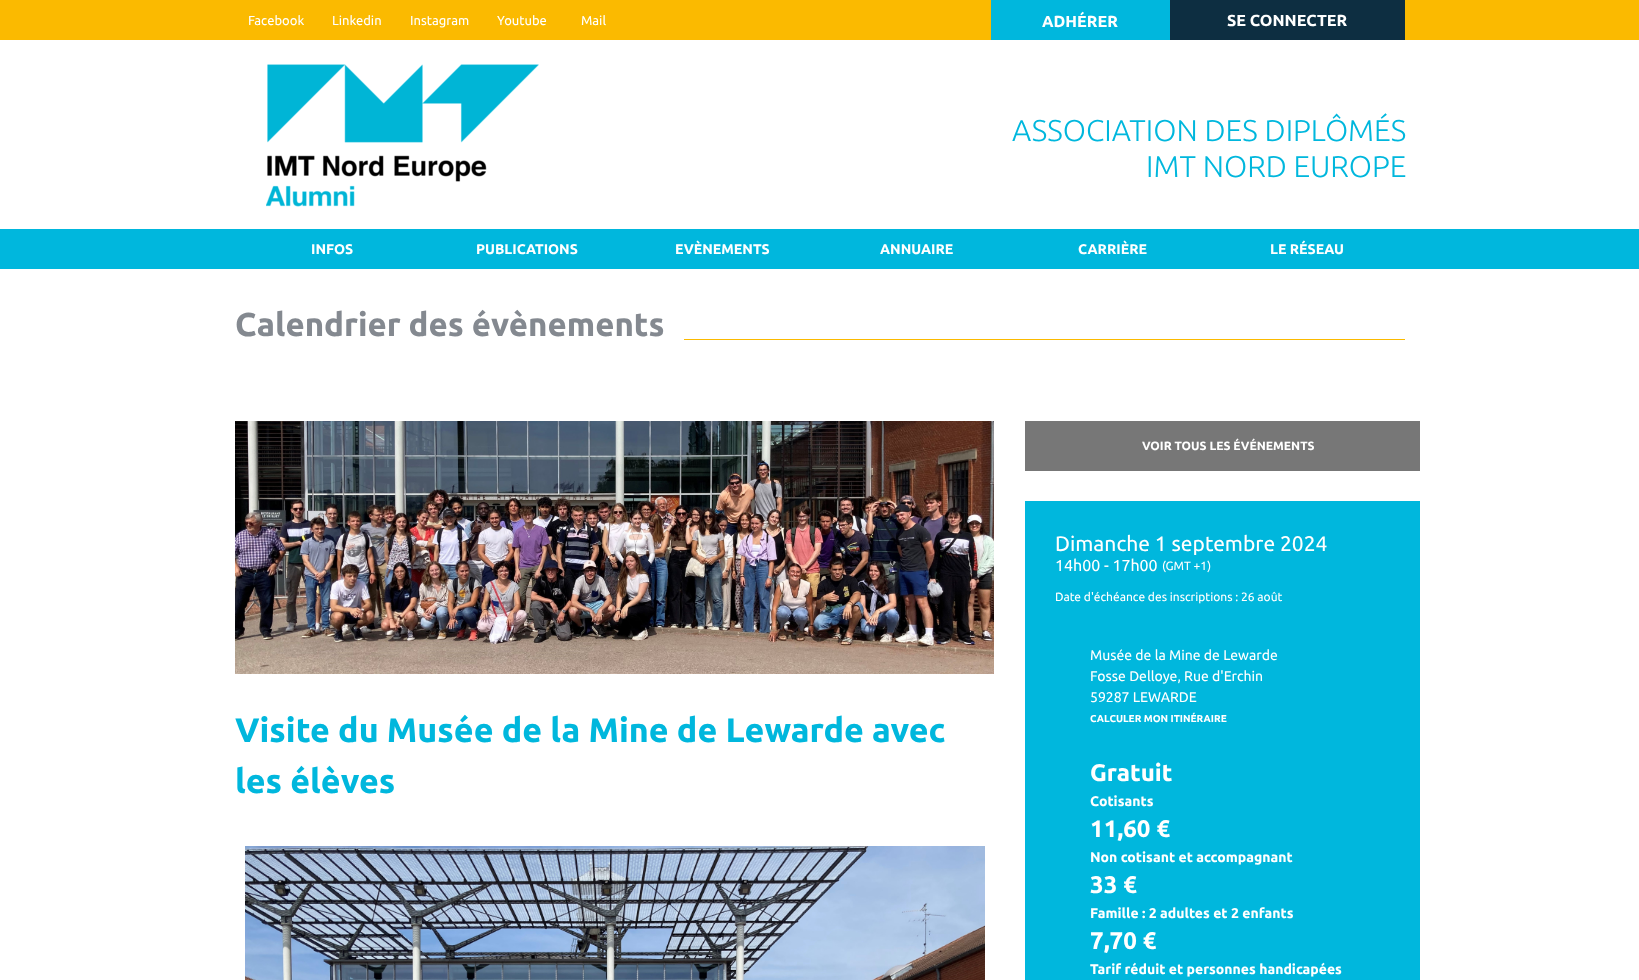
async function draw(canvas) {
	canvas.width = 1639;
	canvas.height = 980;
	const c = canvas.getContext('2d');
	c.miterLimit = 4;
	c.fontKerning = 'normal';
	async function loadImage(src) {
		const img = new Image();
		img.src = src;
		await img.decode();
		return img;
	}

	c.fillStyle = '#fff';
	c.fillRect(0, 0, 1639, 980);
	c.fillStyle = '#fbba00';
	c.fillRect(0, 0, 1639, 40);
	c.font = '13px Ubuntu';
	c.fillStyle = '#fff';
	for (const [text, x, y] of [
		['Facebook', 248, 25],
		['Linkedin', 332, 25],
		['Instagram', 410, 25],
		['Youtube', 497, 25],
		['Mail', 581, 25],
	]) {
		c.fillText(text, x, y);
	}
	c.fillStyle = '#00b7dd';
	c.fillRect(991, 0, 179, 40);
	c.font = 'bold 16px Ubuntu';
	c.fillStyle = '#fff';
	c.fillText('ADHÉRER', 1042, 27);
	c.fillStyle = '#0d2e41';
	c.fillRect(1170, 0, 235, 40);
	c.fillStyle = '#fff';
	c.fillText('SE CONNECTER', 1227, 26);
	c.drawImage(await loadImage('img1.png'), 266, 64, 273, 143);
	c.font = '300 30px Ubuntu';
	c.fillStyle = '#00b7dd';
	c.fillText('ASSOCIATION DES DIPLÔMÉS', 1012, 141);
	c.fillText('IMT NORD EUROPE', 1146, 177);
	c.fillRect(0, 229, 1639, 40);
	c.font = 'bold 14px Ubuntu';
	c.fillStyle = '#fff';
	for (const [text, x, y] of [
		['INFOS', 311, 254],
		['PUBLICATIONS', 476, 254],
		['EVÈNEMENTS', 675, 254],
		['ANNUAIRE', 880, 254],
		['CARRIÈRE', 1078, 254],
		['LE RÉSEAU', 1270, 254],
	]) {
		c.fillText(text, x, y);
	}
	c.font = 'bold 33px Ubuntu';
	c.fillStyle = '#848990';
	c.fillText('Calendrier des évènements', 235, 336);
	c.fillStyle = '#fbba00';
	c.fillRect(684, 339, 721, 1);
	c.drawImage(await loadImage('img2.png'), 235, 421, 759, 253);
	c.font = 'bold 34px Ubuntu';
	c.fillStyle = '#00b7dd';
	c.fillText('Visite du Musée de la Mine de Lewarde avec', 235, 742);
	c.fillText('les élèves', 235, 793);
	c.drawImage(await loadImage('img3.png'), 245, 846, 740, 134);
	c.fillStyle = '#777';
	c.fillRect(1025, 421, 395, 50);
	c.font = 'bold 12px Ubuntu';
	c.fillStyle = '#fff';
	c.fillText('VOIR TOUS LES ÉVÉNEMENTS', 1142, 450);
	c.fillStyle = '#00b7dd';
	c.fillRect(1025, 501, 395, 479);
	c.font = '21px Ubuntu';
	c.fillStyle = '#fff';
	c.fillText('Dimanche 1 septembre 2024', 1055, 551);
	c.font = '16px Ubuntu';
	c.fillText('14h00 - 17h00', 1055, 571);
	c.font = '12px Ubuntu';
	c.fillText('(GMT +1)', 1162, 570);
	c.fillText('Date d\'échéance des inscriptions : 26 août', 1055, 601);
	c.font = '14px Ubuntu';
	for (const [text, x, y] of [
		['Musée de la Mine de Lewarde', 1090, 660],
		['Fosse Delloye, Rue d\'Erchin', 1090, 681],
		['59287 LEWARDE', 1090, 702],
	]) {
		c.fillText(text, x, y);
	}
	c.font = 'bold 10px Ubuntu';
	c.fillText('CALCULER MON ITINÉRAIRE', 1090, 722);
	c.font = 'bold 24px Ubuntu';
	c.fillText('Gratuit', 1090, 781);
	c.font = 'bold 14px Ubuntu';
	c.fillText('Cotisants', 1090, 806);
	c.font = 'bold 24px Ubuntu';
	c.fillText('11,60 €', 1090, 837);
	c.font = 'bold 14px Ubuntu';
	c.fillText('Non cotisant et accompagnant', 1090, 862);
	c.font = 'bold 24px Ubuntu';
	c.fillText('33 €', 1090, 893);
	c.font = 'bold 14px Ubuntu';
	c.fillText('Famille : 2 adultes et 2 enfants', 1090, 918);
	c.font = 'bold 24px Ubuntu';
	c.fillText('7,70 €', 1090, 949);
	c.font = 'bold 14px Ubuntu';
	c.fillText('Tarif réduit et personnes handicapées', 1090, 974);
}

draw(document.querySelector('canvas'));
